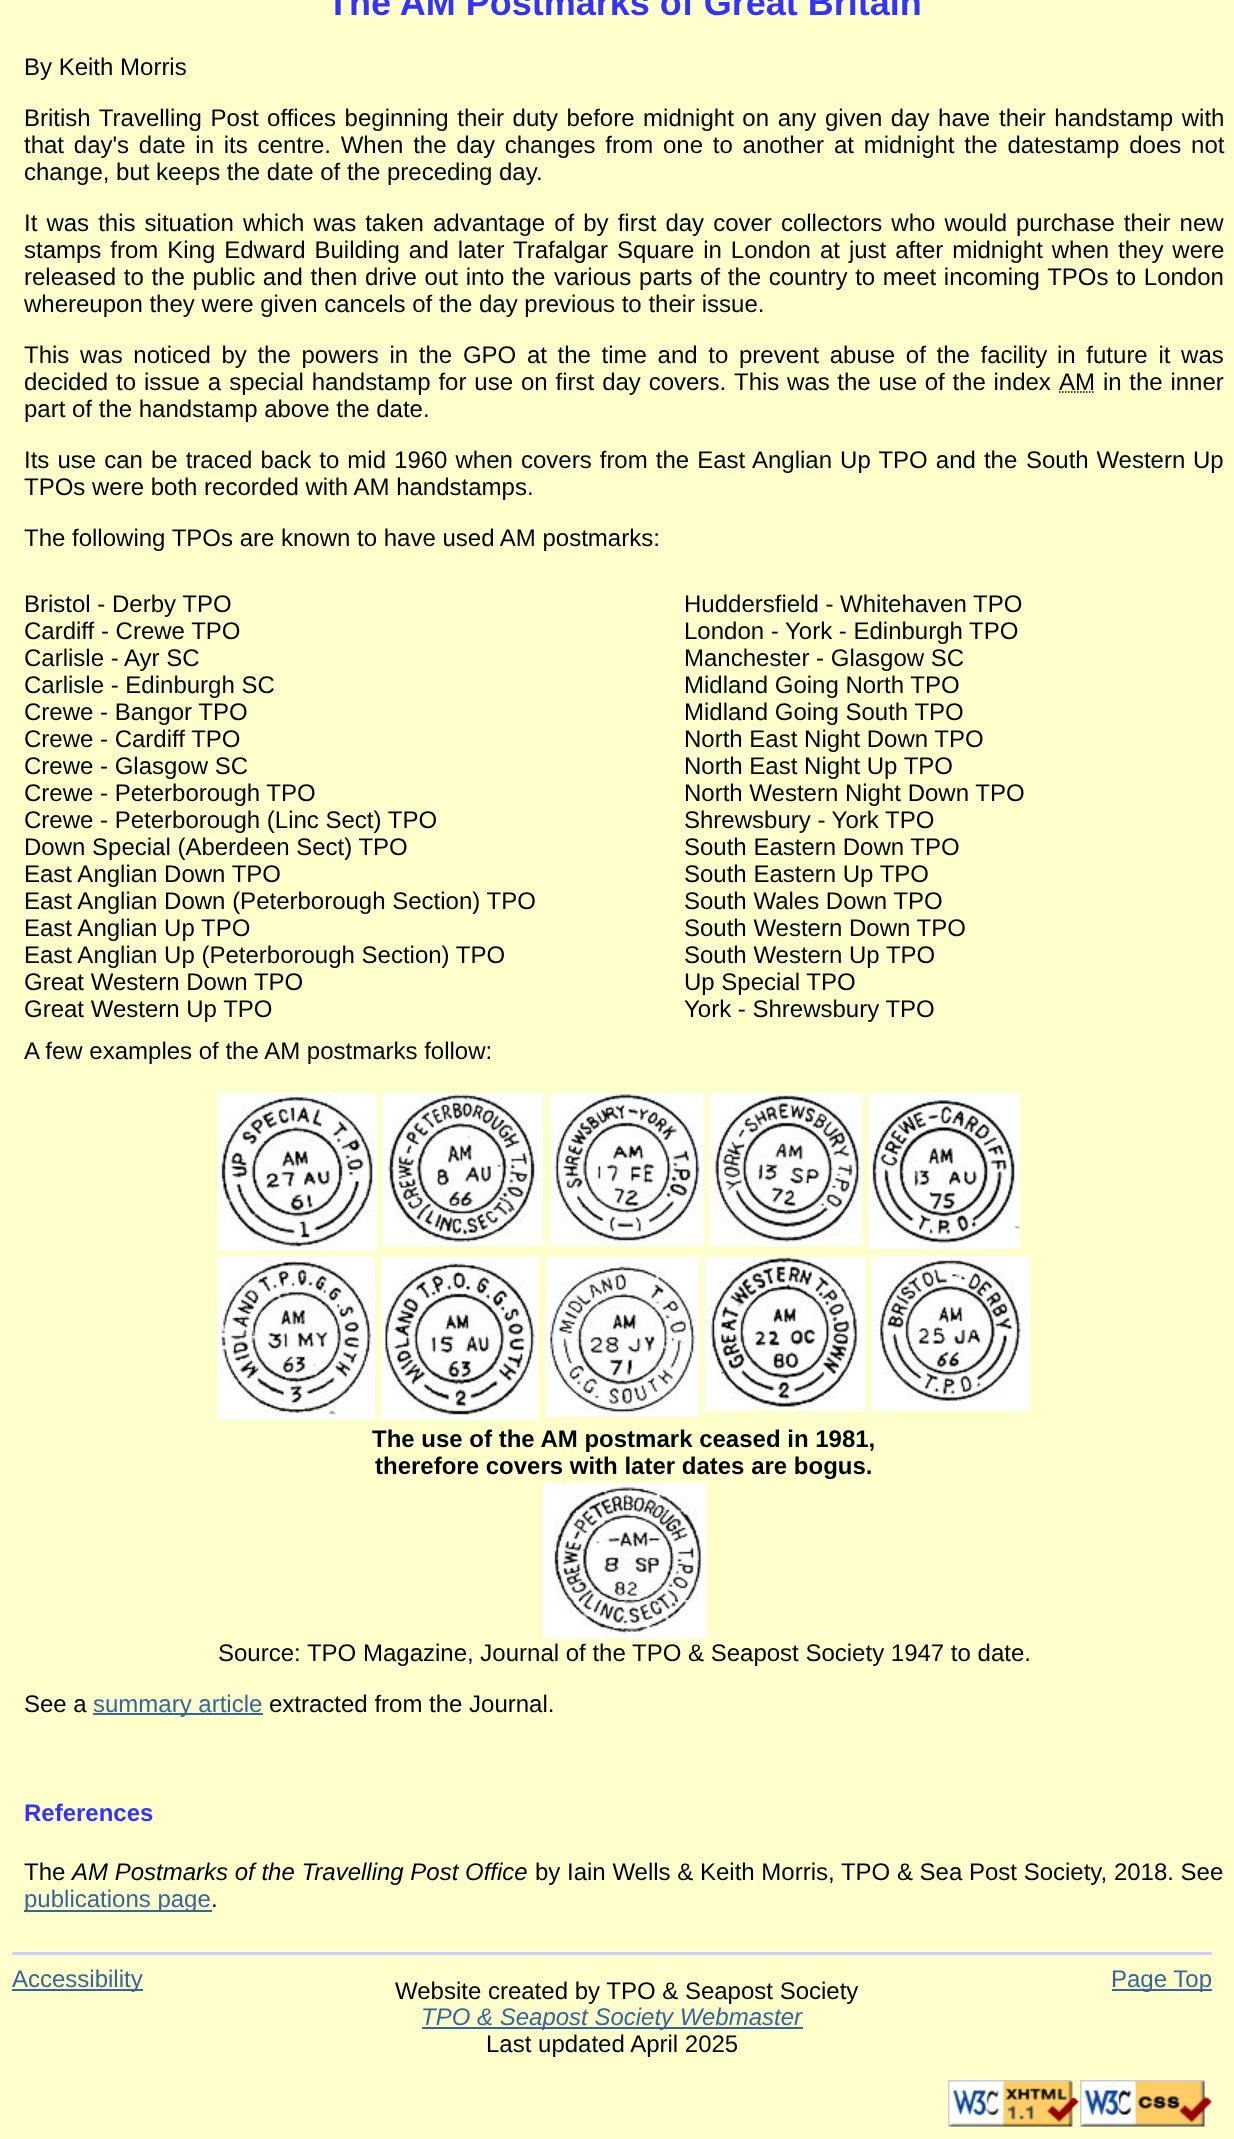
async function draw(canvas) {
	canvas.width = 1234;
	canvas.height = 2139;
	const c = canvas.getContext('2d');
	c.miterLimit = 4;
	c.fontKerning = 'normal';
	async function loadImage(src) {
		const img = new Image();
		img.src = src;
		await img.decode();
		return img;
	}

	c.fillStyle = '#ffc';
	c.fillRect(0, 0, 1234, 2139);
	c.font = 'bold 36px Liberation Sans';
	c.fillStyle = '#33f';
	c.fillText('The AM Postmarks of Great Britain', 327, 15);
	c.font = '24px Liberation Sans';
	c.fillStyle = '#000';
	c.fillText('By Keith Morris', 24, 75);
	c.wordSpacing = '1.9px';
	c.fillText('British Travelling Post offices beginning their duty before midnight on any given day have', 24, 126);
	c.wordSpacing = '2px';
	c.fillText('their handstamp with', 999, 126);
	c.wordSpacing = '3.1px';
	c.fillText('that day\'s date in its centre. When the day changes from one to another', 24, 153);
	c.fillText('at midnight the datestamp does not', 834, 153);
	c.wordSpacing = '0px';
	c.fillText('change, but keeps the date of the preceding day.', 24, 180);
	c.wordSpacing = '2.4px';
	c.fillText('It was this situation which was taken advantage of by first day cover collectors who would', 24, 231);
	c.fillText('purchase their new', 1016, 231);
	c.wordSpacing = '2.25px';
	c.fillText('stamps from King Edward Building and later Trafalgar Square in London', 24, 258);
	c.fillText('at just after midnight when they were', 820, 258);
	c.wordSpacing = '1px';
	c.fillText('released to the public and then drive out into the', 24, 285);
	c.fillText('various parts of the country to meet incoming TPOs to London', 554, 285);
	c.wordSpacing = '0px';
	c.fillText('whereupon they were given cancels of the day previous to their issue.', 24, 312);
	c.wordSpacing = '4px';
	c.fillText('This was noticed by the powers in the GPO at the time and to prevent abuse of the facility', 24, 363);
	c.fillText('in future it was', 1057, 363);
	c.wordSpacing = '1.25px';
	c.fillText('decided to issue a special handstamp for use on first day covers.', 24, 390);
	c.wordSpacing = '1px';
	c.fillText('This was the use of the index', 734, 390);
	c.wordSpacing = '0px';
	c.fillText('AM', 1059, 390);
	c.beginPath();
	c.moveTo(1059, 392);
	c.lineTo(1095, 392);
	c.strokeStyle = '#000';
	c.lineWidth = 1.5;
	c.setLineDash([1.5, 1.5]);
	c.stroke();
	c.wordSpacing = '1px';
	c.fillText('in the inner', 1103, 390);
	c.wordSpacing = '0px';
	c.fillText('part of the handstamp above the date.', 24, 417);
	c.wordSpacing = '1.4px';
	c.fillText('Its use can be traced back to mid 1960 when covers from the East Anglian Up TPO and the', 24, 468);
	c.wordSpacing = '1px';
	c.fillText('South Western Up', 1026, 468);
	c.wordSpacing = '0px';
	for (const [text, x, y] of [
		['TPOs were both recorded with AM handstamps.', 24, 495],
		['The following TPOs are known to have used AM postmarks:', 24, 546],
		['Bristol - Derby TPO', 24, 612],
		['Cardiff - Crewe TPO', 24, 639],
		['Carlisle - Ayr SC', 24, 666],
		['Carlisle - Edinburgh SC', 24, 693],
		['Crewe - Bangor TPO', 24, 720],
		['Crewe - Cardiff TPO', 24, 747],
		['Crewe - Glasgow SC', 24, 774],
		['Crewe - Peterborough TPO', 24, 801],
		['Crewe - Peterborough (Linc Sect) TPO', 24, 828],
		['Down Special (Aberdeen Sect) TPO', 24, 855],
		['East Anglian Down TPO', 24, 882],
		['East Anglian Down (Peterborough Section) TPO', 24, 909],
		['East Anglian Up TPO', 24, 936],
		['East Anglian Up (Peterborough Section) TPO', 24, 963],
		['Great Western Down TPO', 24, 990],
		['Great Western Up TPO', 24, 1017],
		['Huddersfield - Whitehaven TPO', 684, 612],
		['London - York - Edinburgh TPO', 684, 639],
		['Manchester - Glasgow SC', 684, 666],
		['Midland Going North TPO', 684, 693],
		['Midland Going South TPO', 684, 720],
		['North East Night Down TPO', 684, 747],
		['North East Night Up TPO', 684, 774],
		['North Western Night Down TPO', 684, 801],
		['Shrewsbury - York TPO', 684, 828],
		['South Eastern Down TPO', 684, 855],
		['South Eastern Up TPO', 684, 882],
		['South Wales Down TPO', 684, 909],
		['South Western Down TPO', 684, 936],
		['South Western Up TPO', 684, 963],
		['Up Special TPO', 684, 990],
		['York - Shrewsbury TPO', 684, 1017],
		['A few examples of the AM postmarks follow:', 24, 1059],
	]) {
		c.fillText(text, x, y);
	}
	c.drawImage(await loadImage('img1.png'), 217, 1093, 160, 158);
	c.drawImage(await loadImage('img2.png'), 382, 1093, 161, 153);
	c.drawImage(await loadImage('img3.png'), 550, 1093, 154, 153);
	c.drawImage(await loadImage('img4.png'), 709, 1093, 154, 153);
	c.drawImage(await loadImage('img5.png'), 868, 1093, 152, 156);
	c.drawImage(await loadImage('img6.png'), 217, 1256, 158, 164);
	c.drawImage(await loadImage('img7.png'), 381, 1256, 158, 164);
	c.drawImage(await loadImage('img8.png'), 546, 1256, 153, 161);
	c.drawImage(await loadImage('img9.png'), 705, 1256, 161, 155);
	c.drawImage(await loadImage('img10.png'), 871, 1256, 160, 155);
	c.font = 'bold 24px Liberation Sans';
	c.fillText('The use of the AM postmark ceased in 1981,', 372, 1447);
	c.fillText('therefore covers with later dates are bogus.', 375, 1474);
	c.drawImage(await loadImage('img11.png'), 543, 1483, 164, 156);
	c.font = '24px Liberation Sans';
	c.fillText('Source: TPO Magazine, Journal of the TPO & Seapost Society 1947 to date.', 218, 1661);
	c.fillText('See a', 24, 1712);
	c.fillStyle = '#369';
	c.fillRect(93, 1713, 170, 2);
	c.fillText('summary article', 93, 1712);
	c.fillStyle = '#000';
	c.fillText('extracted from the Journal.', 269, 1712);
	c.font = 'bold 24px Liberation Sans';
	c.fillStyle = '#33f';
	c.fillText('References', 24, 1821);
	c.font = '24px Liberation Sans';
	c.fillStyle = '#000';
	c.fillText('The', 24, 1880);
	c.font = 'italic 24px Liberation Sans';
	c.fillText('AM Postmarks of the Travelling Post Office', 72, 1880);
	c.font = '24px Liberation Sans';
	c.fillText('by Iain Wells & Keith Morris, TPO & Sea Post Society, 2018. See', 535, 1880);
	c.fillStyle = '#369';
	c.fillRect(24, 1910, 188, 2);
	c.fillText('publications page', 24, 1907);
	c.fillStyle = '#000';
	c.fillText('.', 211, 1907);
	c.fillStyle = '#ccf';
	c.fillRect(12, 1952, 1200, 3);
	c.fillStyle = '#369';
	c.fillRect(12, 1989, 131, 2);
	c.fillText('Accessibility', 12, 1987);
	c.fillStyle = '#000';
	c.fillText('Website created by TPO & Seapost Society', 395, 1999);
	c.fillStyle = '#369';
	c.fillRect(422, 2027, 381, 2);
	c.font = 'italic 24px Liberation Sans';
	c.fillText('TPO & Seapost Society Webmaster', 421, 2025);
	c.font = '24px Liberation Sans';
	c.fillStyle = '#000';
	c.fillText('Last updated April 2025', 486, 2052);
	c.fillStyle = '#369';
	c.fillRect(1112, 1989, 100, 2);
	c.fillText('Page Top', 1111, 1987);
	c.drawImage(await loadImage('img12.png'), 948, 2080, 131, 47);
	c.drawImage(await loadImage('img13.png'), 1080, 2080, 132, 47);
}

draw(document.querySelector('canvas'));
